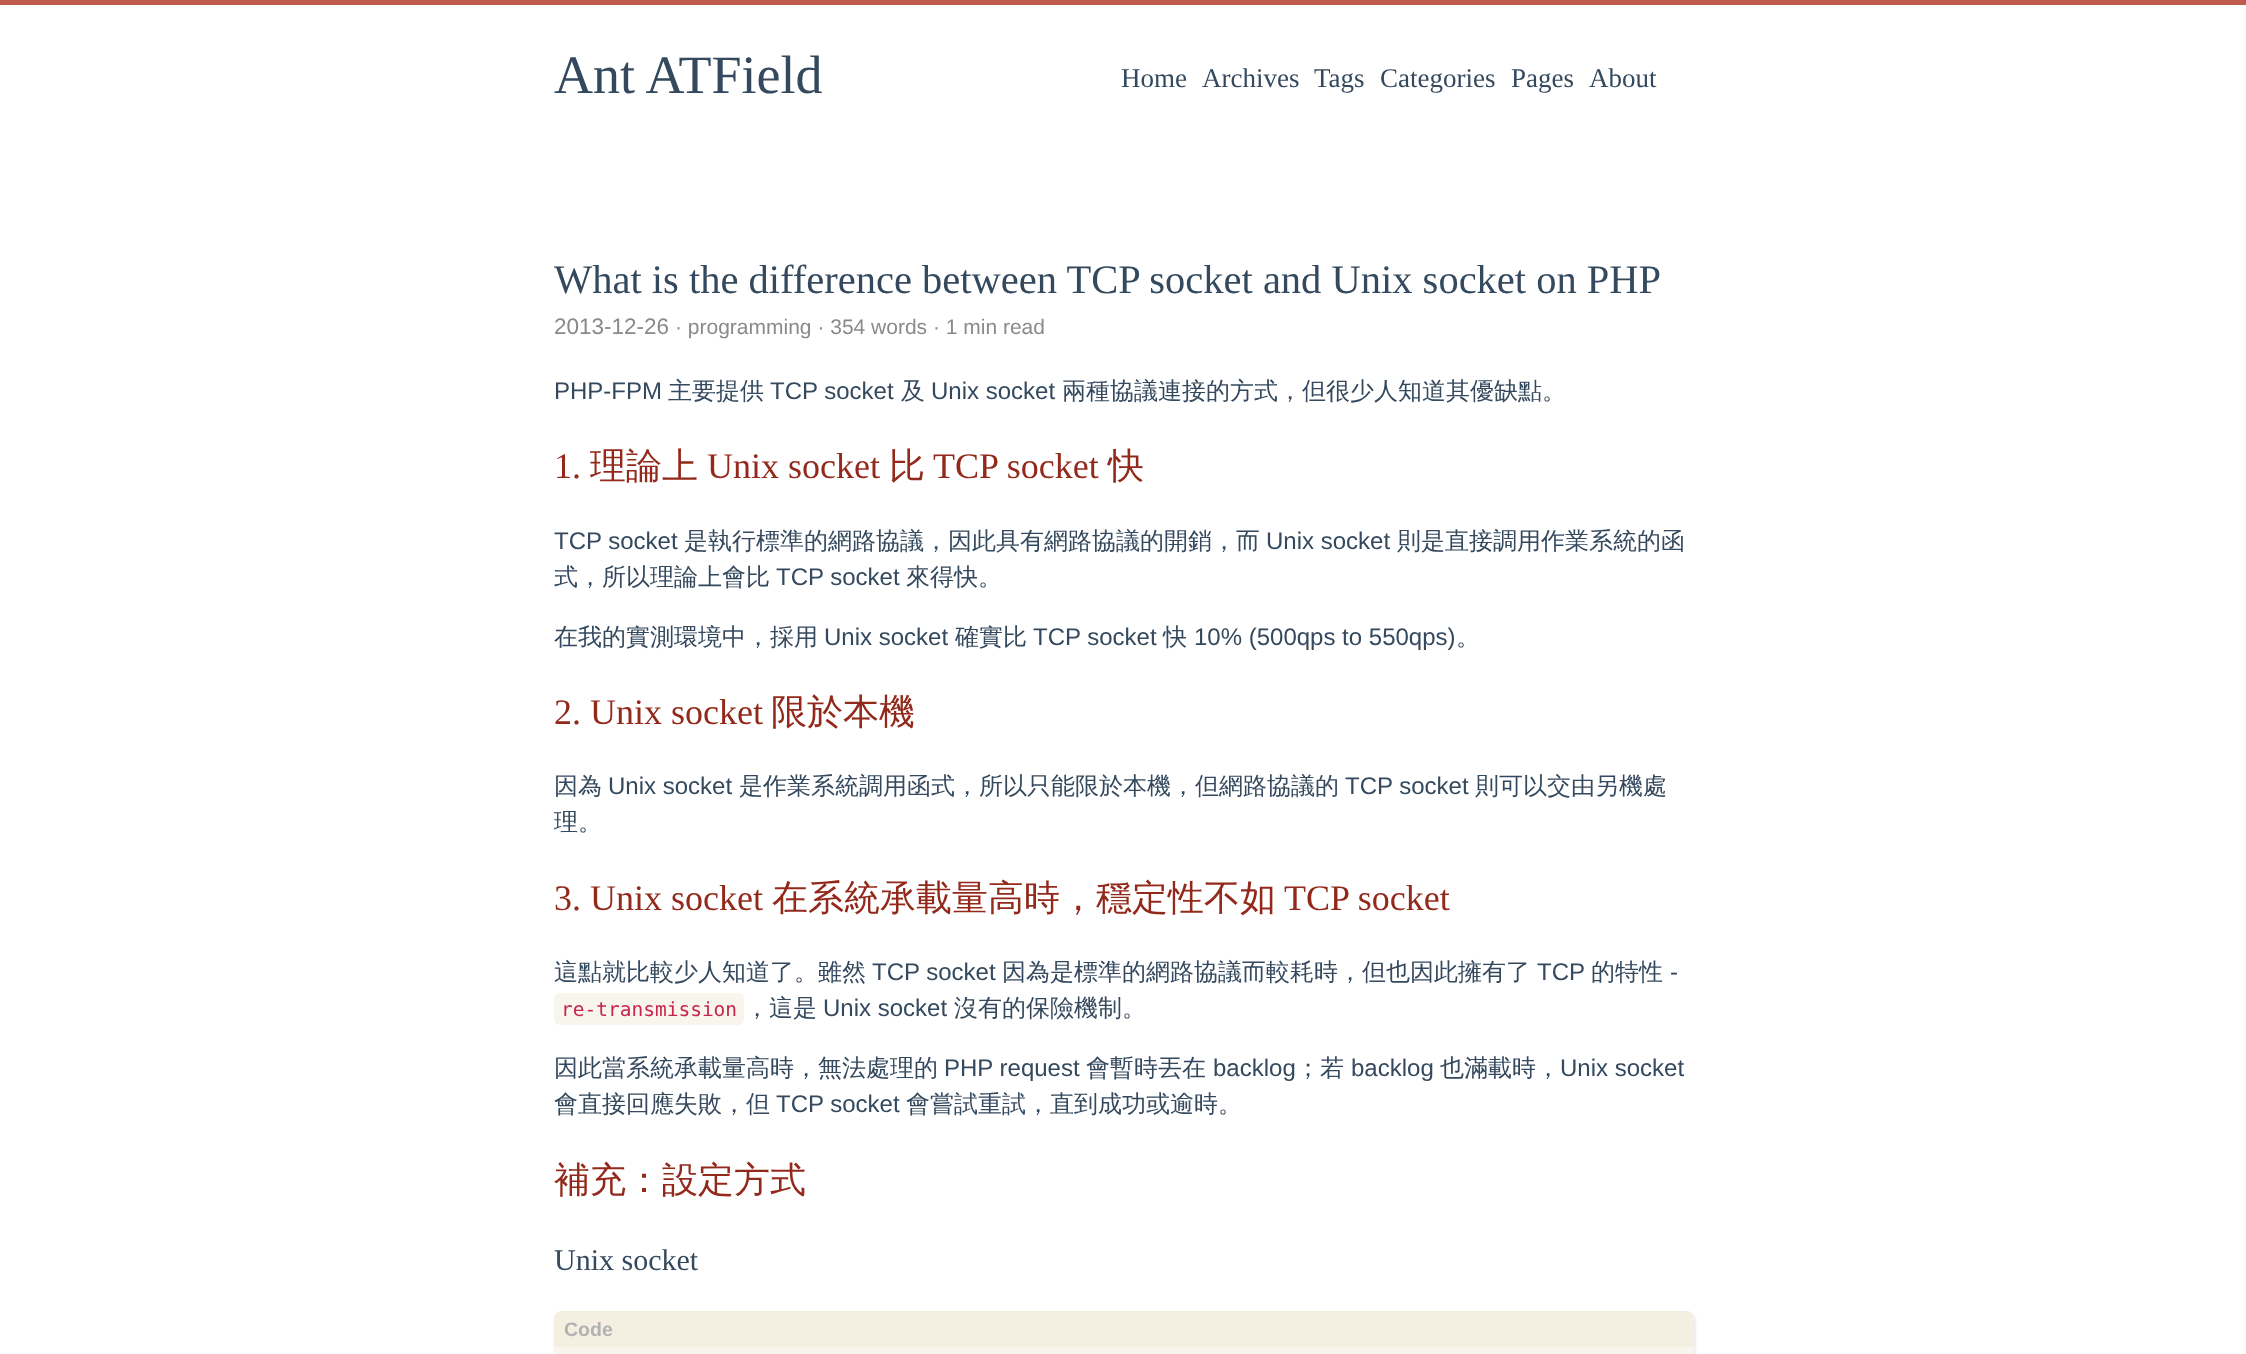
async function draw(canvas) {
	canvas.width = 2246;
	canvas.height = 1354;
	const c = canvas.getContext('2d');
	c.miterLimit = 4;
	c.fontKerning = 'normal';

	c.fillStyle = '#fff';
	c.fillRect(0, 0, 2246, 1354);
	c.fillStyle = '#c05b4d';
	c.fillRect(0, 0, 2246, 5);
	c.font = '54px Liberation Serif';
	c.fillStyle = '#34495e';
	c.fillText('Ant ATField', 554, 93);
	c.font = '27px Liberation Serif';
	for (const [text, x, y] of [
		['Home', 1121, 87],
		['Archives', 1202, 87],
		['Tags', 1314, 87],
		['Categories', 1380, 87],
		['Pages', 1511, 87],
		['About', 1589, 87],
	]) {
		c.fillText(text, x, y);
	}
	c.font = '40.5px Liberation Serif';
	c.fillText('What is the difference between TCP socket and Unix socket on PHP', 554, 293);
	c.font = '22.5px Liberation Sans';
	c.fillStyle = '#8a8a8a';
	c.fillText('2013-12-26', 554, 334);
	c.font = '21px Liberation Sans';
	c.fillText('· programming · 354 words · 1 min read', 675, 334);
	c.font = '24px Liberation Sans';
	c.fillStyle = '#34495e';
	c.fillText('PHP-FPM', 554, 399);
	c.font = '500 24px WenQuanYi Zen Hei';
	c.fillText('主要提供', 668, 399);
	c.font = '24px Liberation Sans';
	c.fillText('TCP socket', 770, 399);
	c.font = '500 24px WenQuanYi Zen Hei';
	c.fillText('及', 901, 399);
	c.font = '24px Liberation Sans';
	c.fillText('Unix socket', 931, 399);
	c.font = '500 24px WenQuanYi Zen Hei';
	c.fillText('兩種協議連接的方式，但很少人知道其優缺點。', 1062, 399);
	c.font = '36px Liberation Serif';
	c.fillStyle = '#93291b';
	c.fillText('1.', 554, 478);
	c.font = '500 36px WenQuanYi Zen Hei';
	c.fillText('理論上', 590, 478);
	c.font = '36px Liberation Serif';
	c.fillText('Unix socket', 707, 478);
	c.font = '500 36px WenQuanYi Zen Hei';
	c.fillText('比', 889, 478);
	c.font = '36px Liberation Serif';
	c.fillText('TCP socket', 933, 478);
	c.font = '500 36px WenQuanYi Zen Hei';
	c.fillText('快', 1108, 478);
	c.font = '24px Liberation Sans';
	c.fillStyle = '#34495e';
	c.fillText('TCP socket', 554, 549);
	c.font = '500 24px WenQuanYi Zen Hei';
	c.fillText('是執行標準的網路協議，因此具有網路協議的開銷，而', 684, 549);
	c.font = '24px Liberation Sans';
	c.fillText('Unix socket', 1266, 549);
	c.font = '500 24px WenQuanYi Zen Hei';
	c.fillText('則是直接調用作業系統的函', 1397, 549);
	c.fillText('式，所以理論上會比', 554, 585);
	c.font = '24px Liberation Sans';
	c.fillText('TCP socket', 776, 585);
	c.font = '500 24px WenQuanYi Zen Hei';
	c.fillText('來得快。', 906, 585);
	c.fillText('在我的實測環境中，採用', 554, 645);
	c.font = '24px Liberation Sans';
	c.fillText('Unix socket', 824, 645);
	c.font = '500 24px WenQuanYi Zen Hei';
	c.fillText('確實比', 955, 645);
	c.font = '24px Liberation Sans';
	c.fillText('TCP socket', 1033, 645);
	c.font = '500 24px WenQuanYi Zen Hei';
	c.fillText('快', 1163, 645);
	c.font = '24px Liberation Sans';
	c.fillText('10% (500qps to 550qps)', 1194, 645);
	c.font = '500 24px WenQuanYi Zen Hei';
	c.fillText('。', 1456, 645);
	c.font = '36px Liberation Serif';
	c.fillStyle = '#93291b';
	c.fillText('2. Unix socket', 554, 724);
	c.font = '500 36px WenQuanYi Zen Hei';
	c.fillText('限於本機', 771, 724);
	c.font = '500 24px WenQuanYi Zen Hei';
	c.fillStyle = '#34495e';
	c.fillText('因為', 554, 794);
	c.font = '24px Liberation Sans';
	c.fillText('Unix socket', 608, 794);
	c.font = '500 24px WenQuanYi Zen Hei';
	c.fillText('是作業系統調用函式，所以只能限於本機，但網路協議的', 739, 794);
	c.font = '24px Liberation Sans';
	c.fillText('TCP socket', 1345, 794);
	c.font = '500 24px WenQuanYi Zen Hei';
	c.fillText('則可以交由另機處', 1475, 794);
	c.fillText('理。', 554, 830);
	c.font = '36px Liberation Serif';
	c.fillStyle = '#93291b';
	c.fillText('3. Unix socket', 554, 910);
	c.font = '500 36px WenQuanYi Zen Hei';
	c.fillText('在系統承載量高時，穩定性不如', 772, 910);
	c.font = '36px Liberation Serif';
	c.fillText('TCP socket', 1284, 910);
	c.font = '500 24px WenQuanYi Zen Hei';
	c.fillStyle = '#34495e';
	c.fillText('這點就比較少人知道了。雖然', 554, 980);
	c.font = '24px Liberation Sans';
	c.fillText('TCP socket', 872, 980);
	c.font = '500 24px WenQuanYi Zen Hei';
	c.fillText('因為是標準的網路協議而較耗時，但也因此擁有了', 1002, 980);
	c.font = '24px Liberation Sans';
	c.fillText('TCP', 1537, 980);
	c.font = '500 24px WenQuanYi Zen Hei';
	c.fillText('的特性', 1591, 980);
	c.font = '24px Liberation Sans';
	c.fillText('-', 1670, 980);
	c.fillStyle = '#f8f5ec';
	c.beginPath();
	c.roundRect(554, 993, 190, 32, 6);
	c.fill();
	c.font = '19.5px DejaVu Sans Mono';
	c.fillStyle = '#c7254e';
	c.fillText('re-transmission', 561, 1016);
	c.font = '500 24px WenQuanYi Zen Hei';
	c.fillStyle = '#34495e';
	c.fillText('，這是', 745, 1016);
	c.font = '24px Liberation Sans';
	c.fillText('Unix socket', 823, 1016);
	c.font = '500 24px WenQuanYi Zen Hei';
	c.fillText('沒有的保險機制。', 954, 1016);
	c.fillText('因此當系統承載量高時，無法處理的', 554, 1076);
	c.font = '24px Liberation Sans';
	c.fillText('PHP request', 944, 1076);
	c.font = '500 24px WenQuanYi Zen Hei';
	c.fillText('會暫時丟在', 1086, 1076);
	c.font = '24px Liberation Sans';
	c.fillText('backlog', 1213, 1076);
	c.font = '500 24px WenQuanYi Zen Hei';
	c.fillText('；若', 1296, 1076);
	c.font = '24px Liberation Sans';
	c.fillText('backlog', 1351, 1076);
	c.font = '500 24px WenQuanYi Zen Hei';
	c.fillText('也滿載時，', 1440, 1076);
	c.font = '24px Liberation Sans';
	c.fillText('Unix socket', 1560, 1076);
	c.font = '500 24px WenQuanYi Zen Hei';
	c.fillText('會直接回應失敗，但', 554, 1112);
	c.font = '24px Liberation Sans';
	c.fillText('TCP socket', 776, 1112);
	c.font = '500 24px WenQuanYi Zen Hei';
	c.fillText('會嘗試重試，直到成功或逾時。', 906, 1112);
	c.font = '500 36px WenQuanYi Zen Hei';
	c.fillStyle = '#93291b';
	c.fillText('補充：設定方式', 554, 1192);
	c.font = '30px Liberation Serif';
	c.fillStyle = '#34495e';
	c.fillText('Unix socket', 554, 1270);
	c.fillStyle = '#0000001f';
	c.filter = 'blur(1.5px)';
	c.beginPath();
	c.roundRect(555, 1313, 1140, 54, 8);
	c.fill();
	c.filter = 'none';
	c.fillStyle = '#f8f5ec';
	c.beginPath();
	c.moveTo(562, 1311);
	c.lineTo(587, 1311);
	c.lineTo(587, 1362);
	c.lineTo(562, 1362);
	c.bezierCurveTo(557.5, 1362, 554, 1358.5, 554, 1354);
	c.lineTo(554, 1319);
	c.bezierCurveTo(554, 1314.5, 557.5, 1311, 562, 1311);
	c.closePath();
	c.fill();
	c.beginPath();
	c.moveTo(587, 1311);
	c.lineTo(1686, 1311);
	c.bezierCurveTo(1690.5, 1311, 1694, 1314.5, 1694, 1319);
	c.lineTo(1694, 1354);
	c.bezierCurveTo(1694, 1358.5, 1690.5, 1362, 1686, 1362);
	c.lineTo(587, 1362);
	c.closePath();
	c.fill();
	c.fillStyle = '#f4efe1';
	c.beginPath();
	c.roundRect(554, 1311, 1140, 36, [8, 8, 0, 0]);
	c.fill();
	c.font = 'bold 19.5px Liberation Sans';
	c.fillStyle = '#b1b1b1';
	c.fillText('Code', 564, 1336);
}

draw(document.querySelector('canvas'));
